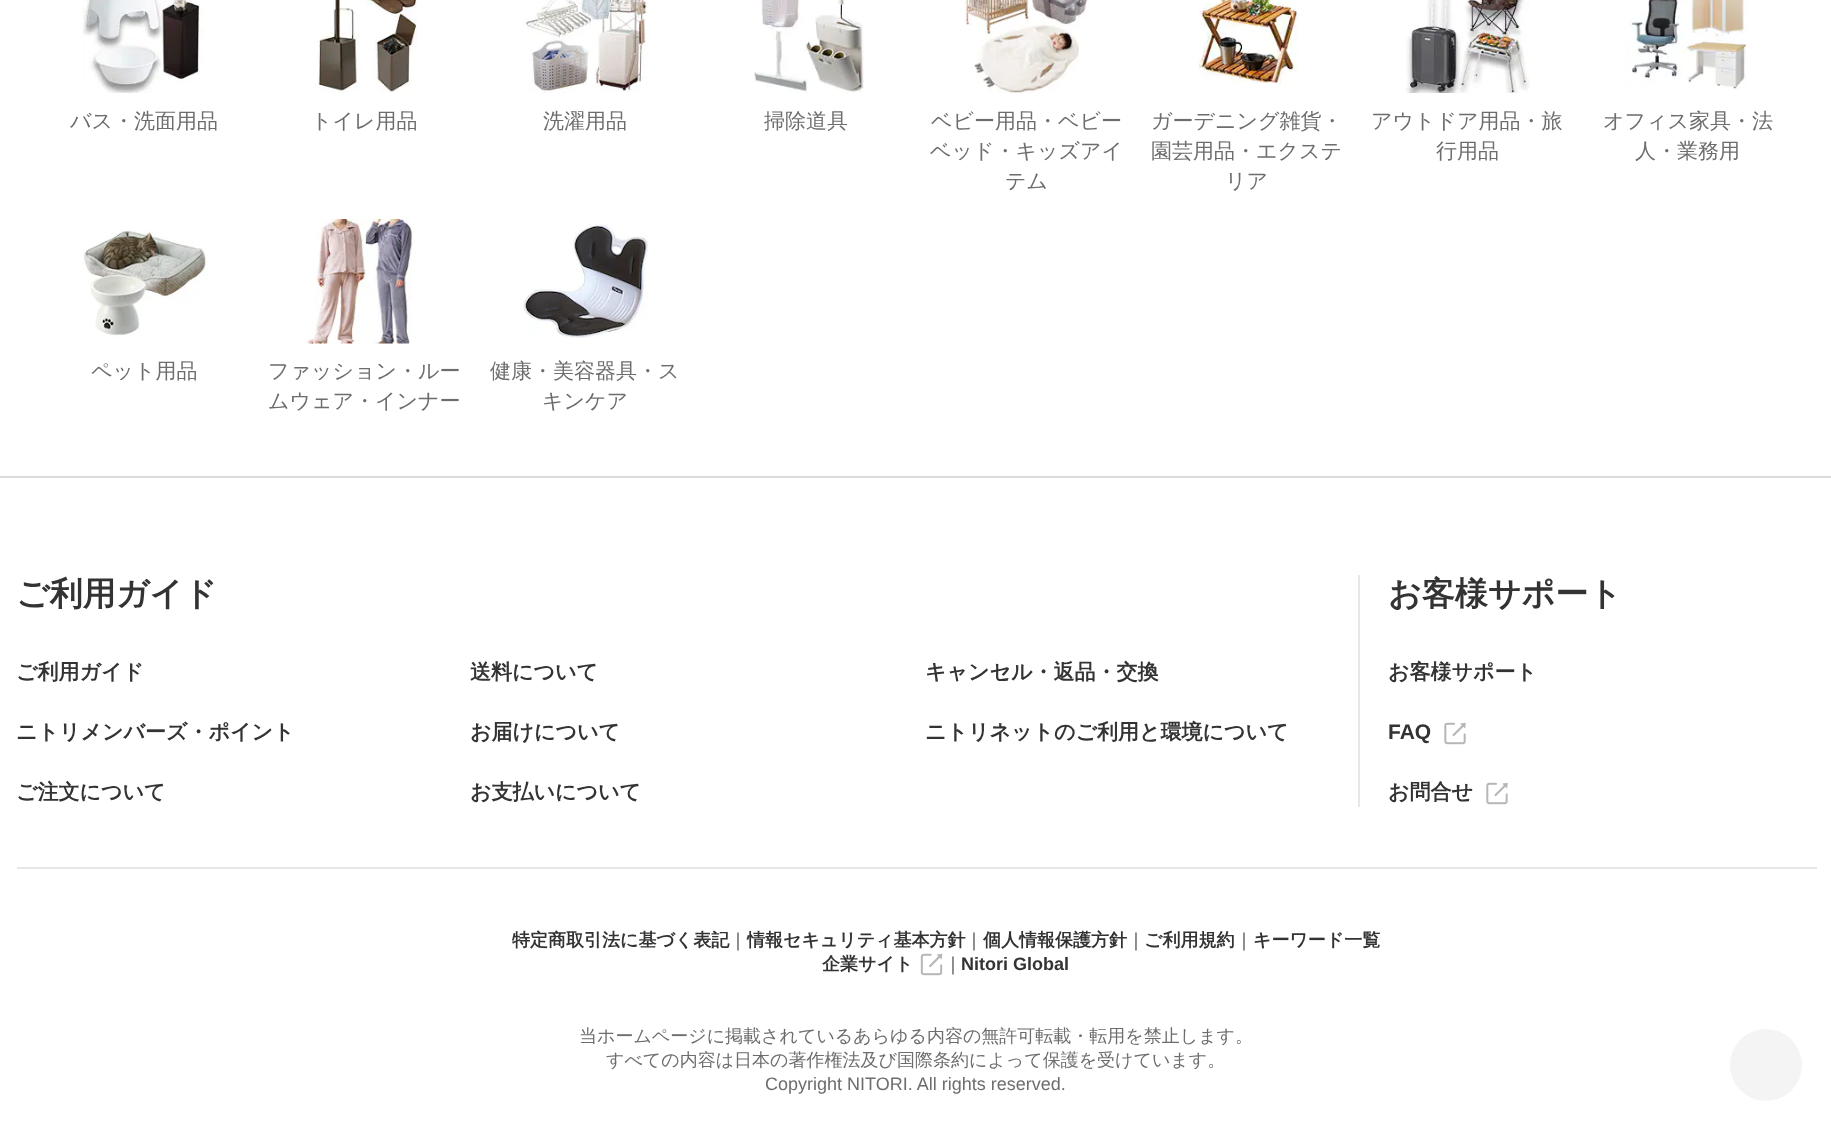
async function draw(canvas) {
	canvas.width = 1831;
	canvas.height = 1131;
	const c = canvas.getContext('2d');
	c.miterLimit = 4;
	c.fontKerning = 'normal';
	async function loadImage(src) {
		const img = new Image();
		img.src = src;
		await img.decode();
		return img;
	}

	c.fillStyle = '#fff';
	c.fillRect(0, 0, 1831, 1131);
	c.drawImage(await loadImage('img1.png'), 82, 0, 122, 93);
	c.font = '500 21px WenQuanYi Zen Hei';
	c.fillStyle = '#6d6d6d';
	c.fillText('バス・洗面用品', 70, 128);
	c.drawImage(await loadImage('img2.png'), 317, 0, 101, 93);
	c.fillText('トイレ用品', 311, 128);
	c.drawImage(await loadImage('img3.png'), 523, 0, 125, 93);
	c.fillText('洗濯用品', 543, 128);
	c.drawImage(await loadImage('img4.png'), 754, 0, 110, 93);
	c.fillText('掃除道具', 764, 128);
	c.drawImage(await loadImage('img5.png'), 964, 0, 125, 93);
	for (const [text, x, y] of [
		['ベビー用品・ベビー', 931, 128],
		['ベッド・キッズアイ', 930, 158],
		['テム', 1005, 188],
	]) {
		c.fillText(text, x, y);
	}
	c.drawImage(await loadImage('img6.png'), 1198, 0, 101, 85);
	for (const [text, x, y] of [
		['ガーデニング雑貨・', 1151, 128],
		['園芸用品・エクステ', 1151, 158],
		['リア', 1225, 188],
	]) {
		c.fillText(text, x, y);
	}
	c.drawImage(await loadImage('img7.png'), 1405, 0, 125, 93);
	c.fillText('アウトドア用品・旅', 1371, 128);
	c.fillText('行用品', 1436, 158);
	c.drawImage(await loadImage('img8.png'), 1626, 0, 122, 90);
	c.fillText('オフィス家具・法', 1603, 128);
	c.fillText('人・業務用', 1635, 158);
	c.drawImage(await loadImage('img9.png'), 82, 230, 125, 107);
	c.fillText('ペット用品', 91, 378);
	c.drawImage(await loadImage('img10.png'), 306, 219, 107, 125);
	c.fillText('ファッション・ルー', 268, 378);
	c.fillText('ムウェア・インナー', 268, 408);
	c.drawImage(await loadImage('img11.png'), 523, 224, 125, 114);
	c.fillText('健康・美容器具・ス', 490, 378);
	c.fillText('キンケア', 542, 408);
	c.fillStyle = '#dbdbdb';
	c.fillRect(0, 476, 1831, 2);
	c.fillStyle = '#e7e7e7';
	c.fillRect(17, 867, 1800, 2);
	c.font = 'bold 33px WenQuanYi Zen Hei';
	c.fillStyle = '#333';
	c.fillText('ご利用ガイド', 16, 605);
	c.font = 'bold 21px WenQuanYi Zen Hei';
	for (const [text, x, y] of [
		['ご利用ガイド', 16, 679],
		['送料について', 470, 679],
		['キャンセル・返品・交換', 925, 679],
		['ニトリメンバーズ・ポイント', 16, 739],
		['お届けについて', 470, 739],
		['ニトリネットのご利用と環境について', 925, 739],
		['ご注文について', 16, 799],
		['お支払いについて', 470, 799],
	]) {
		c.fillText(text, x, y);
	}
	c.fillStyle = '#e7e7e7';
	c.fillRect(1358, 575, 2, 232);
	c.font = 'bold 33px WenQuanYi Zen Hei';
	c.fillStyle = '#333';
	c.fillText('お客様サポート', 1388, 605);
	c.font = 'bold 21px WenQuanYi Zen Hei';
	c.fillText('お客様サポート', 1388, 679);
	c.font = 'bold 21px Liberation Sans';
	c.fillText('FAQ', 1388, 739);
	c.drawImage(await loadImage('img12.png'), 1444, 722, 22, 23);
	c.font = 'bold 21px WenQuanYi Zen Hei';
	c.fillText('お問合せ', 1388, 799);
	c.drawImage(await loadImage('img12.png'), 1486, 782, 22, 23);
	c.fillStyle = '#f4f4f4';
	c.beginPath();
	c.arc(1766, 1065, 36, 0, 2 * Math.PI);
	c.fill();
	c.font = 'bold 18px WenQuanYi Zen Hei';
	c.fillStyle = '#333';
	c.fillText('特定商取引法に基づく表記', 512, 946);
	c.font = '500 18px WenQuanYi Zen Hei';
	c.fillText('｜', 729, 946);
	c.font = 'bold 18px WenQuanYi Zen Hei';
	c.fillText('情報セキュリティ基本方針', 747, 946);
	c.font = '500 18px WenQuanYi Zen Hei';
	c.fillText('｜', 965, 946);
	c.font = 'bold 18px WenQuanYi Zen Hei';
	c.fillText('個人情報保護方針', 983, 946);
	c.font = '500 18px WenQuanYi Zen Hei';
	c.fillText('｜', 1127, 946);
	c.font = 'bold 18px WenQuanYi Zen Hei';
	c.fillText('ご利用規約', 1144, 946);
	c.font = '500 18px WenQuanYi Zen Hei';
	c.fillText('｜', 1235, 946);
	c.font = 'bold 18px WenQuanYi Zen Hei';
	c.fillText('キーワード一覧', 1253, 946);
	c.fillText('企業サイト', 822, 970);
	c.drawImage(await loadImage('img13.png'), 920, 953, 23, 23);
	c.font = '500 18px WenQuanYi Zen Hei';
	c.fillText('｜', 944, 970);
	c.font = 'bold 18px Liberation Sans';
	c.fillText('Nitori Global', 961, 970);
	c.font = '500 18px WenQuanYi Zen Hei';
	c.fillStyle = '#6d6d6d';
	c.fillText('当ホームページに掲載されているあらゆる内容の無許可転載・転用を禁止します。', 579, 1042);
	c.fillText('すべての内容は日本の著作権法及び国際条約によって保護を受けています。', 606, 1066);
	c.font = '18px Liberation Sans';
	c.fillText('Copyright NITORI. All rights reserved.', 765, 1090);
}

draw(document.querySelector('canvas'));
